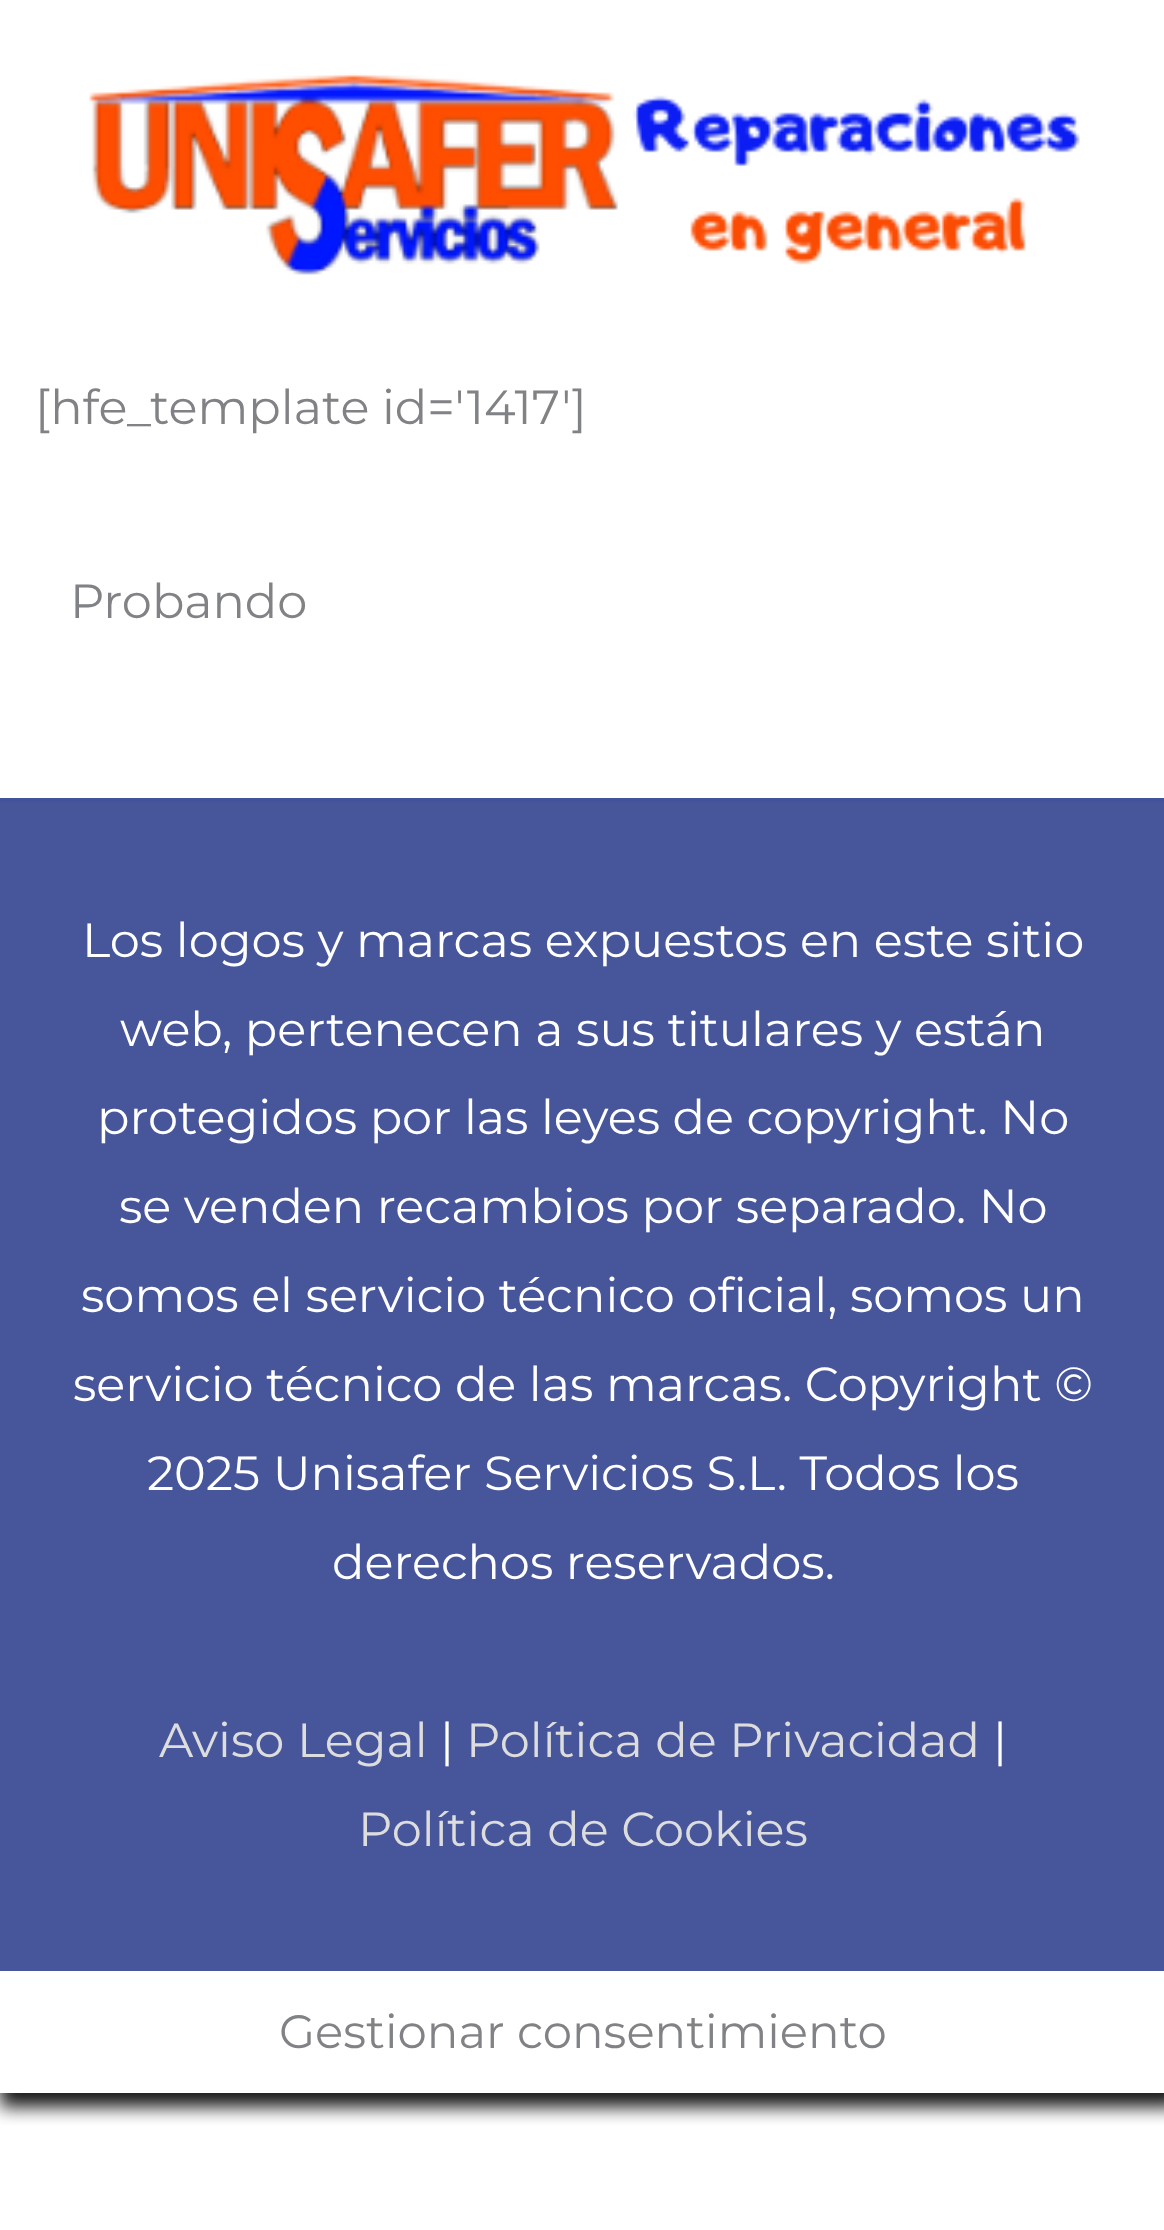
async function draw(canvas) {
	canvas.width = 1164;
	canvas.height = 2230;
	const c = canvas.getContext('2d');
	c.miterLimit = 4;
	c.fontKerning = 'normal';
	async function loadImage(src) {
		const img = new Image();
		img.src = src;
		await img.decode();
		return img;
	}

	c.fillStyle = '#fff';
	c.fillRect(0, 0, 1164, 2230);
	c.drawImage(await loadImage('img1.png'), 89, 73, 991, 202);
	c.font = '47.9px Montserrat';
	c.fillStyle = '#808285';
	c.fillText('[hfe_template id=\'1417\']', 35, 424);
	c.fillText('Probando', 70, 618);
	c.fillStyle = '#42539b';
	c.fillRect(0, 798, 1164, 4);
	c.save();
	c.beginPath();
	c.rect(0, 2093, 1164, 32);
	c.clip();
	c.fillStyle = '#161616';
	c.filter = 'blur(9px)';
	c.beginPath();
	c.rect(0, 1971, 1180, 136);
	c.fill();
	c.filter = 'none';
	c.restore();
	c.fillStyle = '#47569b';
	c.fillRect(0, 802, 1164, 1169);
	c.fillStyle = '#fff';
	for (const [text, x, y] of [
		['Los logos y marcas expuestos en este sitio', 82, 957],
		['web, pertenecen a sus titulares y están', 120, 1046],
		['protegidos por las leyes de copyright. No', 97, 1134],
		['se venden recambios por separado. No', 119, 1223],
		['somos el servicio técnico oficial, somos un', 81, 1312],
		['servicio técnico de las marcas. Copyright ©', 73, 1401],
		['2025 Unisafer Servicios S.L. Todos los', 147, 1490],
		['derechos reservados.', 332, 1579],
	]) {
		c.fillText(text, x, y);
	}
	c.fillStyle = '#ddd';
	c.fillText('Aviso Legal', 159, 1757);
	c.fillStyle = '#fff';
	c.fillText('|', 440, 1757);
	c.fillStyle = '#ddd';
	c.fillText('Política de Privacidad', 466, 1757);
	c.fillStyle = '#fff';
	c.fillText('|', 993, 1757);
	c.fillStyle = '#ddd';
	c.fillText('Política de Cookies', 358, 1846);
	c.font = '46.7px Montserrat';
	c.fillStyle = '#808285';
	c.fillText('Gestionar consentimiento', 279, 2048);
}

draw(document.querySelector('canvas'));
